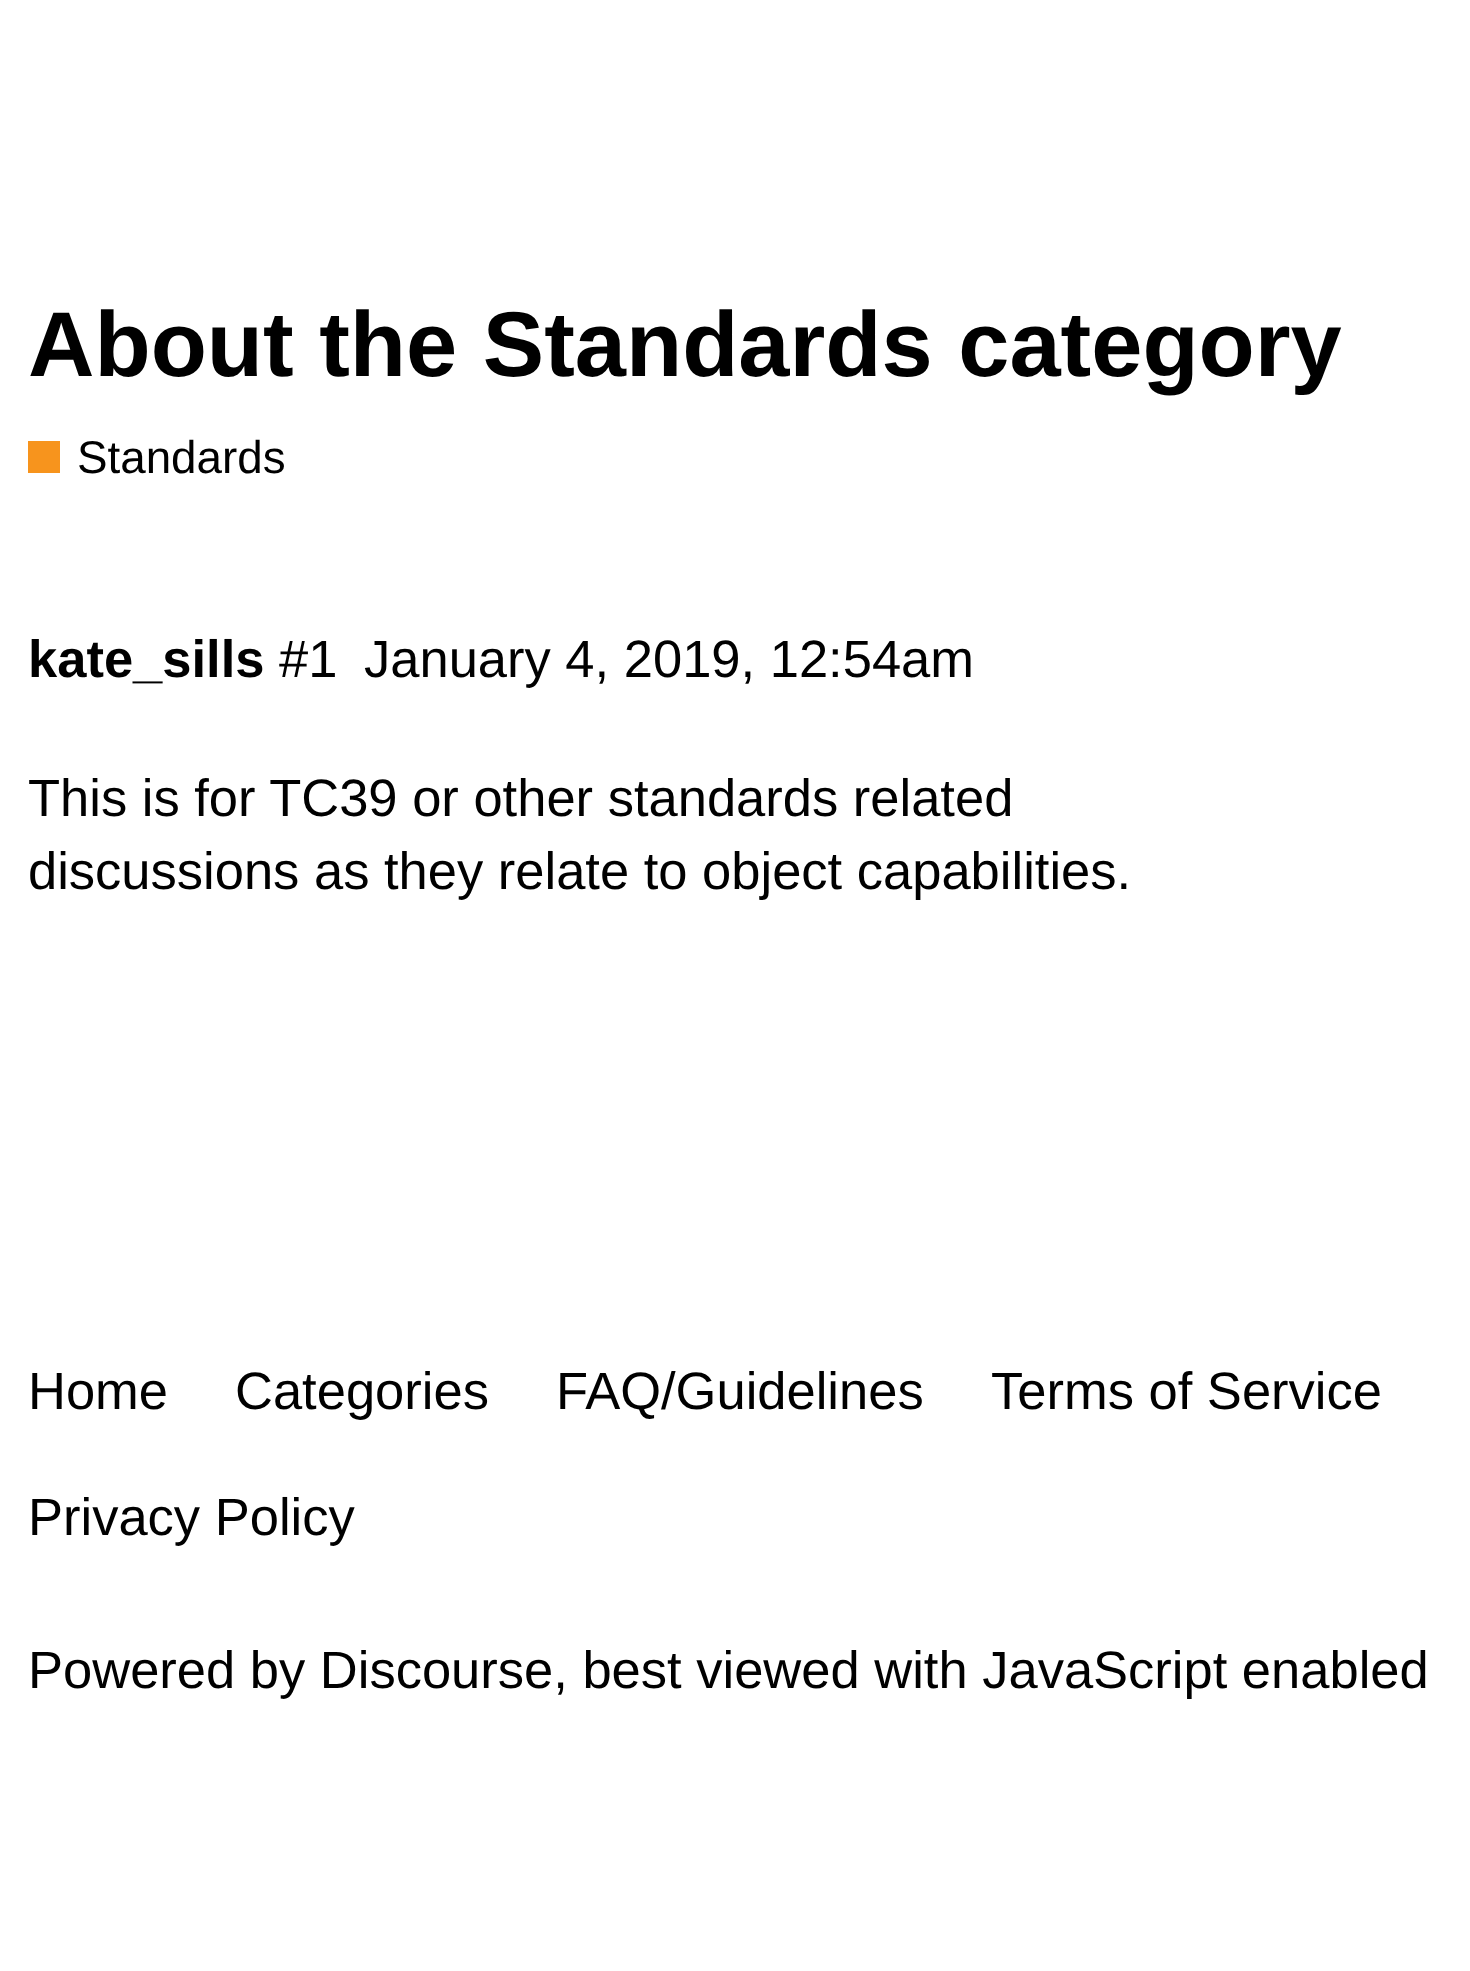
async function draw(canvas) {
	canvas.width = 1470;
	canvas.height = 1971;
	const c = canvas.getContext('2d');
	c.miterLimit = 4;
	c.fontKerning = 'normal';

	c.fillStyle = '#fff';
	c.fillRect(0, 0, 1470, 1971);
	c.font = 'bold 92px Liberation Sans';
	c.fillStyle = '#000';
	c.fillText('About the Standards category', 28, 376);
	c.fillStyle = '#f7941d';
	c.fillRect(28, 441, 32, 32);
	c.font = '45.75px Liberation Sans';
	c.fillStyle = '#000';
	c.fillText('Standards', 77, 473);
	c.font = 'bold 52.5px Liberation Sans';
	c.fillText('kate_sills', 28, 677);
	c.font = '52.5px Liberation Sans';
	for (const [text, x, y] of [
		['#1', 279, 677],
		['January 4, 2019, 12:54am', 364, 677],
		['This is for TC39 or other standards related', 28, 816],
		['discussions as they relate to object capabilities.', 28, 889],
		['Home', 28, 1409],
		['Categories', 235, 1409],
		['FAQ/Guidelines', 556, 1409],
		['Terms of Service', 991, 1409],
		['Privacy Policy', 28, 1535],
		['Powered by Discourse, best viewed with JavaScript enabled', 28, 1688],
	]) {
		c.fillText(text, x, y);
	}
}

draw(document.querySelector('canvas'));
